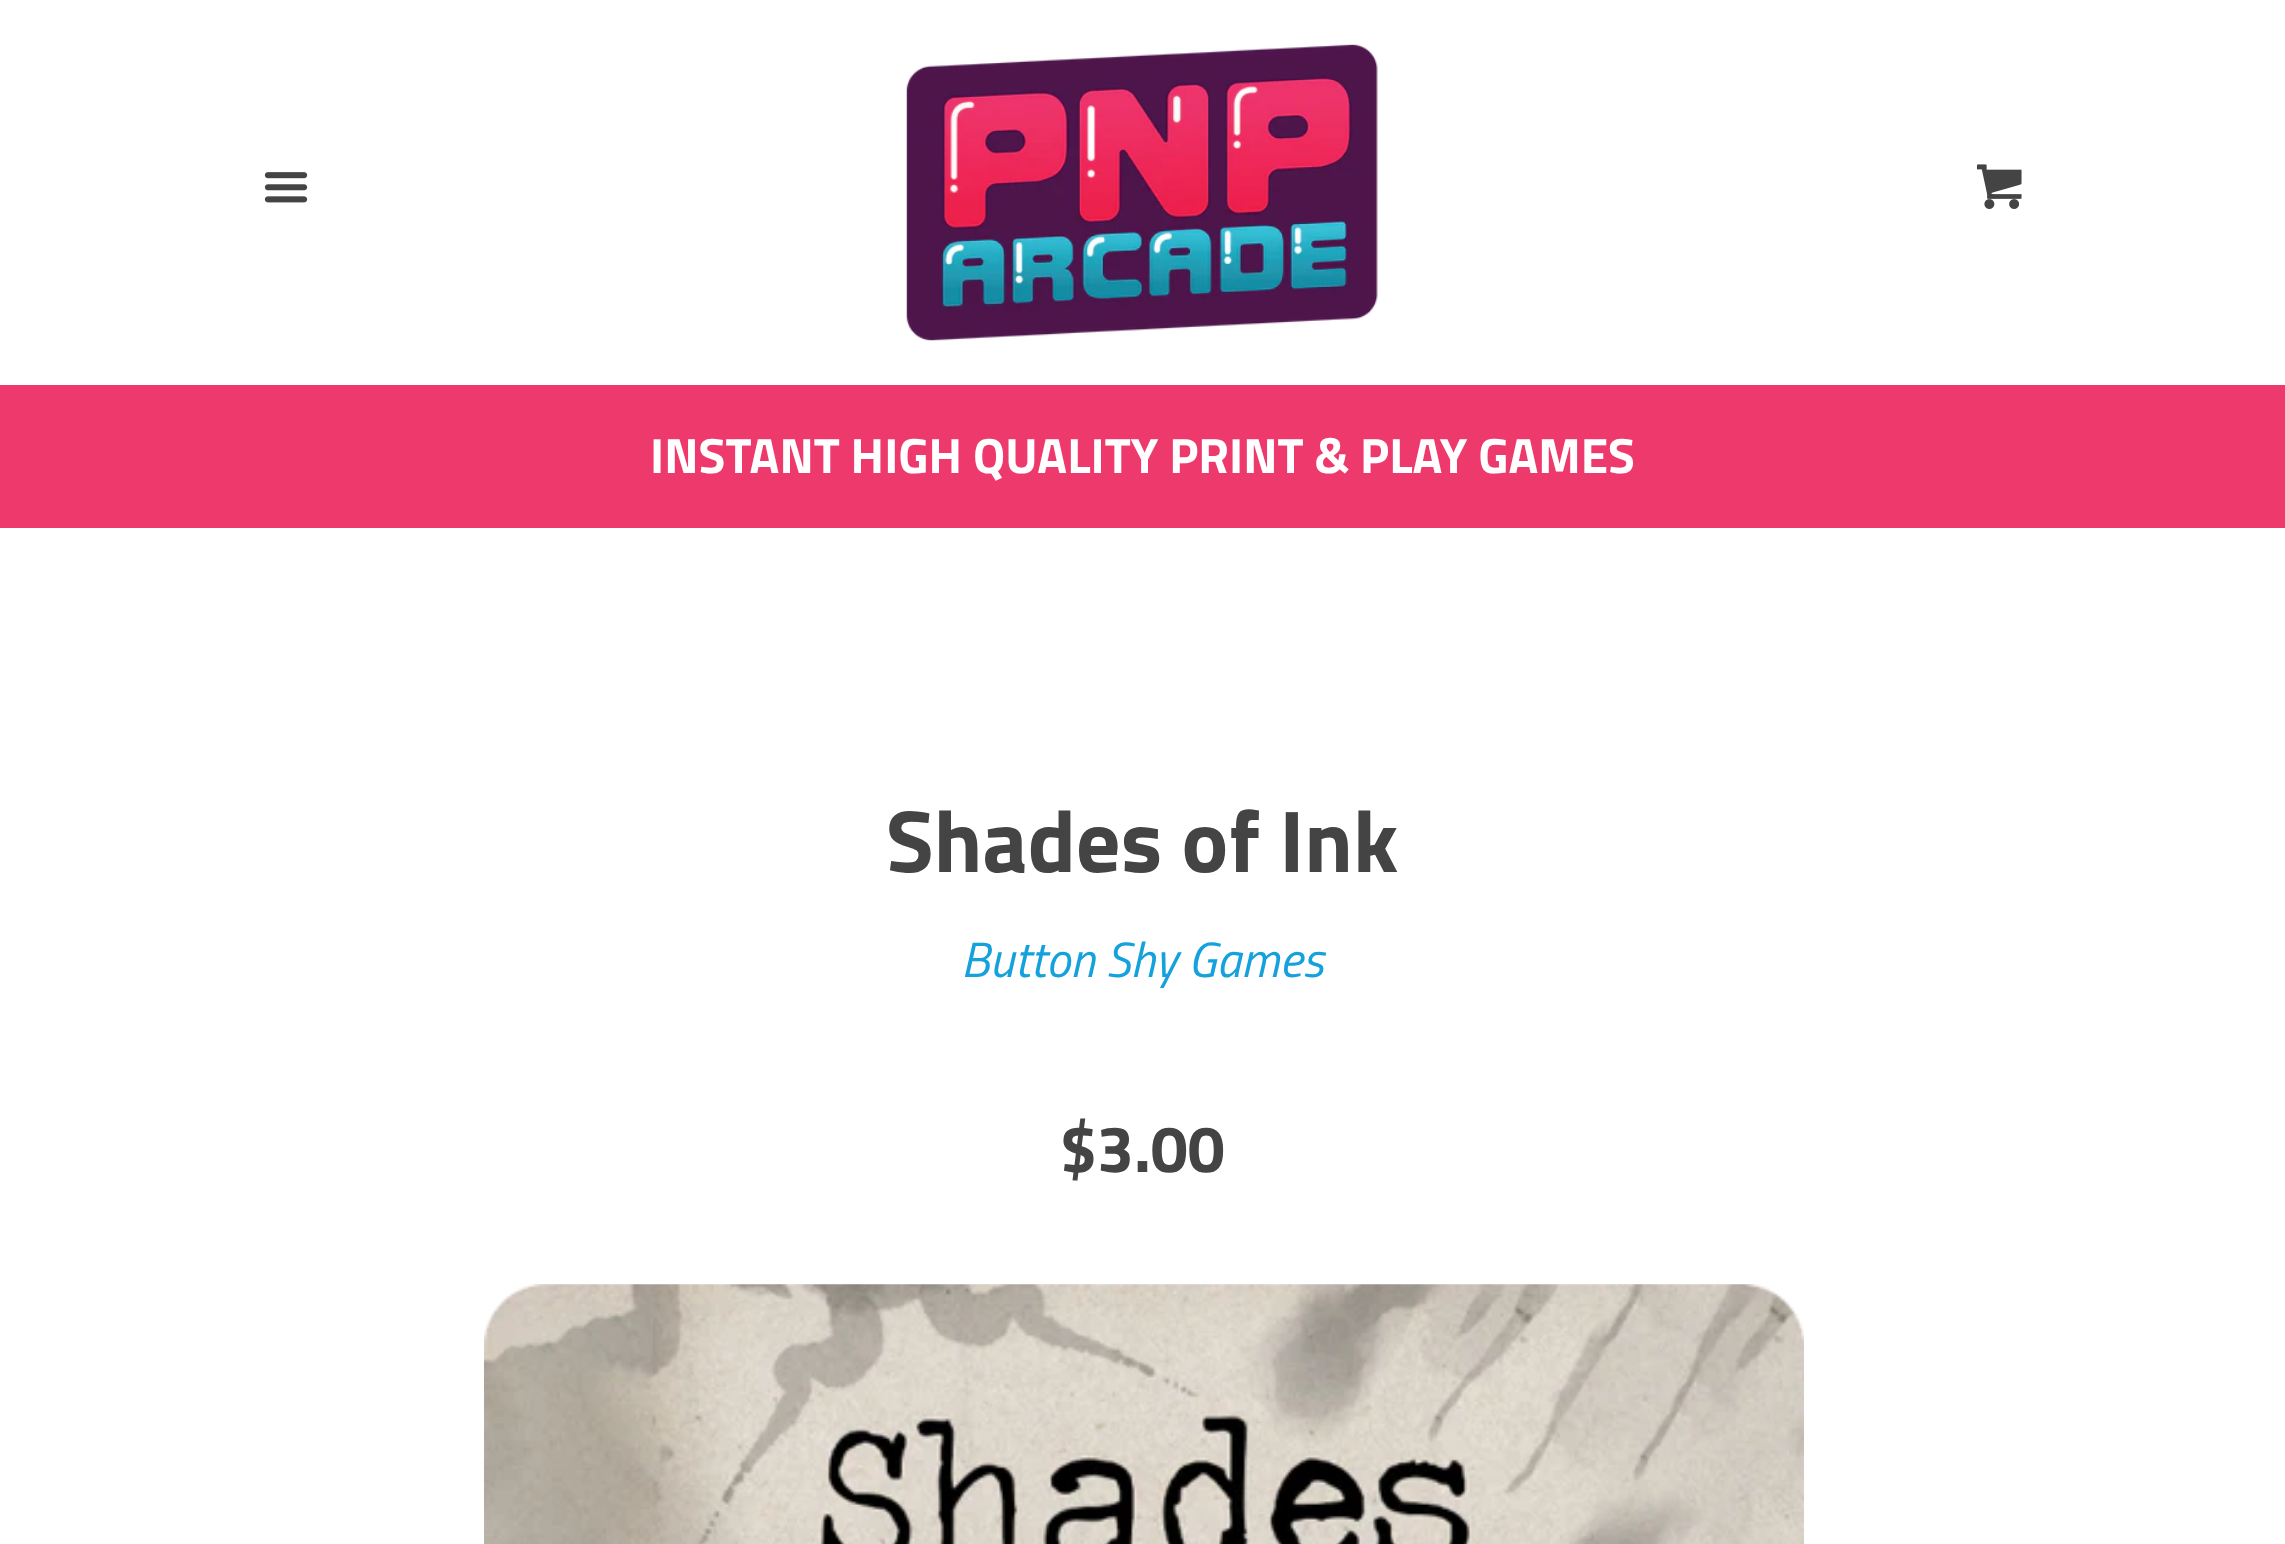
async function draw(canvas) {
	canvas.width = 2285;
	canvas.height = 1544;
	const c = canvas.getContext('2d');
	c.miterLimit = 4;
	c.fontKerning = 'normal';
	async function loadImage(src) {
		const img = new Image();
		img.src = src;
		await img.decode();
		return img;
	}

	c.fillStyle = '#fff';
	c.fillRect(0, 0, 2285, 1544);
	c.drawImage(await loadImage('img1.png'), 264, 172, 44, 31);
	c.drawImage(await loadImage('img2.png'), 906, 44, 472, 297);
	c.drawImage(await loadImage('img3.png'), 1976, 164, 46, 45);
	c.fillStyle = '#ee396c';
	c.fillRect(0, 385, 2285, 143);
	c.font = 'bold 49.5px Titillium Web';
	c.fillStyle = '#fff';
	c.fillText('INSTANT HIGH QUALITY PRINT & PLAY GAMES', 650, 473);
	c.font = 'bold 88px Titillium Web';
	c.fillStyle = '#444';
	c.fillText('Shades of Ink', 886, 872);
	c.font = 'italic 49.5px Titillium Web';
	c.fillStyle = '#15a1db';
	c.fillText('Button Shy Games', 961, 977);
	c.font = 'bold 66px Titillium Web';
	c.fillStyle = '#444';
	c.fillText('$3.00', 1060, 1172);
	c.drawImage(await loadImage('img4.png'), 484, 1284, 1320, 260);
}

draw(document.querySelector('canvas'));
